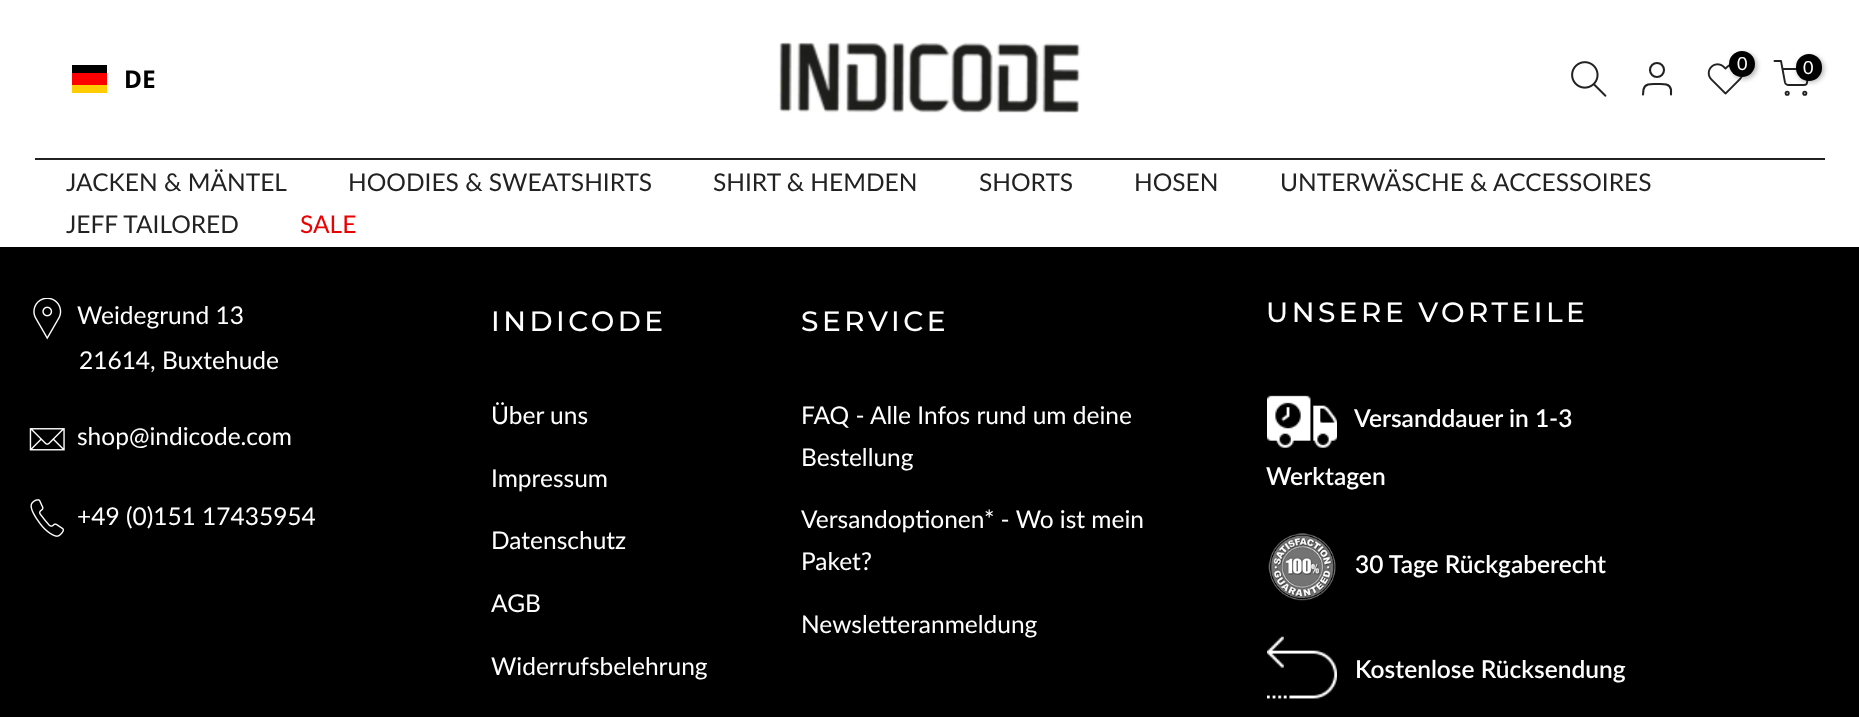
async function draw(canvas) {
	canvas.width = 1859;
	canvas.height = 717;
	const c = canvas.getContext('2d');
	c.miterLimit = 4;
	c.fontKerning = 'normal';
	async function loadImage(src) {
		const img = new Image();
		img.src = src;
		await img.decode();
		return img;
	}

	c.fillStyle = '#000';
	c.fillRect(0, 0, 1859, 717);
	c.fillStyle = '#fff';
	c.fillRect(0, 0, 1859, 247);
	c.fillStyle = '#222';
	c.fillRect(35, 158, 1790, 2);
	c.drawImage(await loadImage('img1.png'), 779, 42, 302, 71);
	c.drawImage(await loadImage('img2.png'), 1571, 61, 36, 36);
	c.beginPath();
	c.arc(1657, 70, 7, 0, 2 * Math.PI);
	c.strokeStyle = '#222';
	c.lineWidth = 2.1;
	c.stroke();
	c.beginPath();
	c.moveTo(1671, 94.5);
	c.lineTo(1671, 89.5);
	c.bezierCurveTo(1669.5, 83, 1662.5, 84, 1657, 84);
	c.bezierCurveTo(1652, 84, 1645, 83, 1643.5, 89.5);
	c.lineTo(1643, 94.5);
	c.lineCap = 'round';
	c.lineJoin = 'round';
	c.stroke();
	c.drawImage(await loadImage('img3.png'), 1707, 63, 36, 32);
	c.fillStyle = '#0000004d';
	c.filter = 'blur(2.5px)';
	c.beginPath();
	c.roundRect(1731, 53, 26, 26, 13);
	c.fill();
	c.filter = 'none';
	c.fillStyle = '#000';
	c.beginPath();
	c.arc(1742, 64, 13, 0, 2 * Math.PI);
	c.fill();
	c.font = '18px Lato';
	c.fillStyle = '#fff';
	c.fillText('0', 1737, 70);
	c.beginPath();
	c.moveTo(1774.5, 61);
	c.lineTo(1781, 61);
	c.lineTo(1785, 82.5);
	c.bezierCurveTo(1785.5, 84, 1786.5, 85, 1788.5, 85);
	c.lineTo(1804, 85);
	c.bezierCurveTo(1805.5, 85, 1807, 84, 1807, 82.5);
	c.lineTo(1809.5, 69);
	c.lineTo(1782.5, 69);
	c.lineWidth = 1.9;
	c.stroke();
	c.beginPath();
	c.arc(1787.2, 93.2, 1.6, 0, 2 * Math.PI);
	c.stroke();
	c.beginPath();
	c.arc(1804.8, 93.2, 1.6, 0, 2 * Math.PI);
	c.stroke();
	c.fillStyle = '#0000004d';
	c.filter = 'blur(2.5px)';
	c.beginPath();
	c.roundRect(1797, 56, 27, 26, 13);
	c.fill();
	c.filter = 'none';
	c.fillStyle = '#000';
	c.beginPath();
	c.roundRect(1796, 54, 26, 27, 13);
	c.fill();
	c.fillStyle = '#fff';
	c.fillText('0', 1803, 74);
	for (const [x, y, w, h, color] of [
		[72, 85, 35, 8, '#fc0'],
		[72, 65, 35, 8, '#000001'],
		[72, 73, 35, 12, '#f00'],
	]) {
		c.fillStyle = color;
		c.fillRect(x, y, w, h);
	}
	c.font = 'bold 24.5px Noto Sans';
	c.fillStyle = '#000';
	c.fillText('DE', 124, 88);
	c.font = '24.5px Lato';
	c.fillStyle = '#222';
	for (const [text, x, y] of [
		['JACKEN & MÄNTEL', 66, 191],
		['HOODIES & SWEATSHIRTS', 348, 191],
		['SHIRT & HEMDEN', 713, 191],
		['SHORTS', 979, 191],
		['HOSEN', 1134, 191],
		['UNTERWÄSCHE & ACCESSOIRES', 1280, 191],
		['JEFF TAILORED', 66, 233],
	]) {
		c.fillText(text, x, y);
	}
	c.fillStyle = '#ec0101';
	c.fillText('SALE', 300, 233);
	c.drawImage(await loadImage('img4.png'), 33, 298, 29, 42);
	c.fillStyle = '#fff';
	c.fillText('Weidegrund 13', 77, 324);
	c.fillText('21614, Buxtehude', 79, 369);
	c.drawImage(await loadImage('img5.png'), 29, 428, 36, 23);
	c.fillText('shop@indicode.com', 77, 445);
	c.drawImage(await loadImage('img6.png'), 30, 499, 34, 38);
	c.fillText('+49 (0)151 17435954', 77, 525);
	c.letterSpacing = '3.5px';
	c.font = '500 28px Montserrat';
	c.fillText('INDICODE', 491, 331);
	c.letterSpacing = '0px';
	c.font = '24.5px Lato';
	for (const [text, x, y] of [
		['Über uns', 491, 424],
		['Impressum', 491, 487],
		['Datenschutz', 491, 549],
		['AGB', 491, 612],
		['Widerrufsbelehrung', 491, 675],
	]) {
		c.fillText(text, x, y);
	}
	c.letterSpacing = '3.5px';
	c.font = '500 28px Montserrat';
	c.fillText('SERVICE', 801, 331);
	c.letterSpacing = '0px';
	c.font = '24.5px Lato';
	for (const [text, x, y] of [
		['FAQ - Alle Infos rund um deine', 801, 424],
		['Bestellung', 801, 466],
		['Versandoptionen* - Wo ist mein', 801, 528],
		['Paket?', 801, 570],
		['Newsletteranmeldung', 801, 633],
	]) {
		c.fillText(text, x, y);
	}
	c.letterSpacing = '3.5px';
	c.font = '500 28px Montserrat';
	c.fillText('UNSERE VORTEILE', 1266, 322);
	c.drawImage(await loadImage('img7.png'), 1267, 395, 70, 53);
	c.letterSpacing = '0px';
	c.font = '600 24.5px Lato';
	c.fillText('Versanddauer in 1-3', 1354, 427);
	c.fillText('Werktagen', 1266, 485);
	c.drawImage(await loadImage('img8.png'), 1268, 533, 68, 68);
	c.fillText('30 Tage Rückgaberecht', 1355, 573);
	c.drawImage(await loadImage('img9.png'), 1267, 636, 70, 63);
	c.fillText('Kostenlose Rücksendung', 1355, 678);
}

draw(document.querySelector('canvas'));
